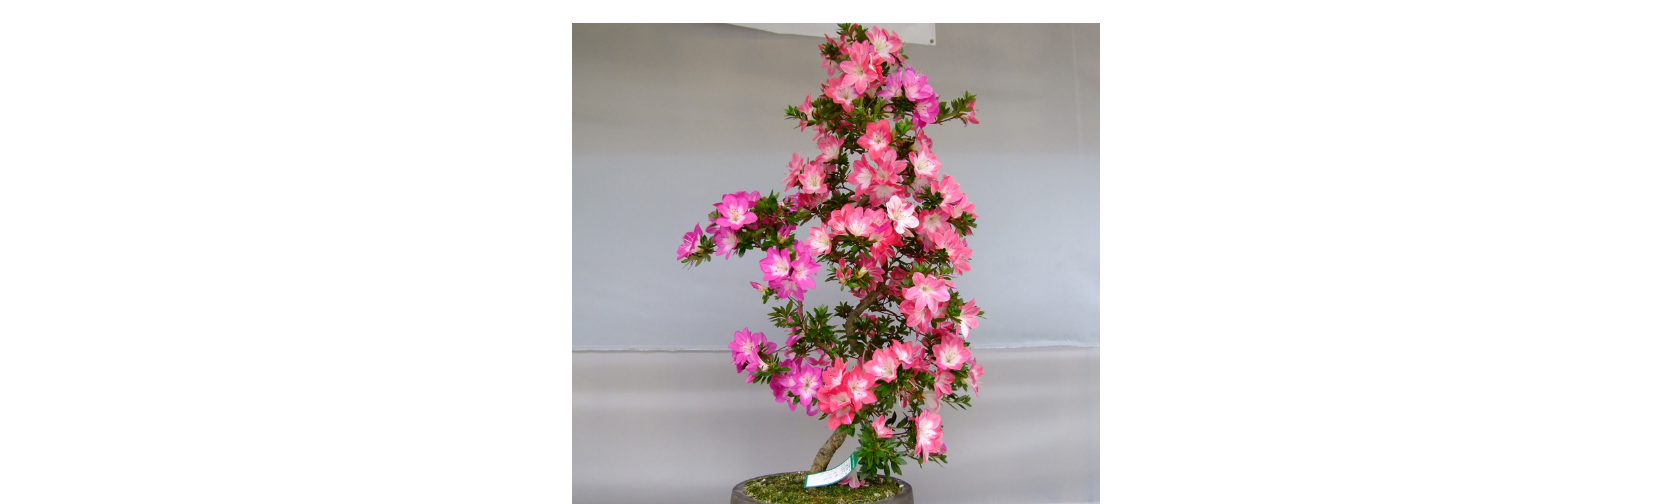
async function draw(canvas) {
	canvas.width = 1672;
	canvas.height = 504;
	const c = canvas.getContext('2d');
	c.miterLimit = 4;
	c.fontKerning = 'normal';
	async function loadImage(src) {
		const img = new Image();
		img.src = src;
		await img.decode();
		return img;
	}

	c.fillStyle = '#fff';
	c.fillRect(0, 0, 1672, 504);
	c.drawImage(await loadImage('img1.png'), 572, 23, 528, 481);
}

draw(document.querySelector('canvas'));
